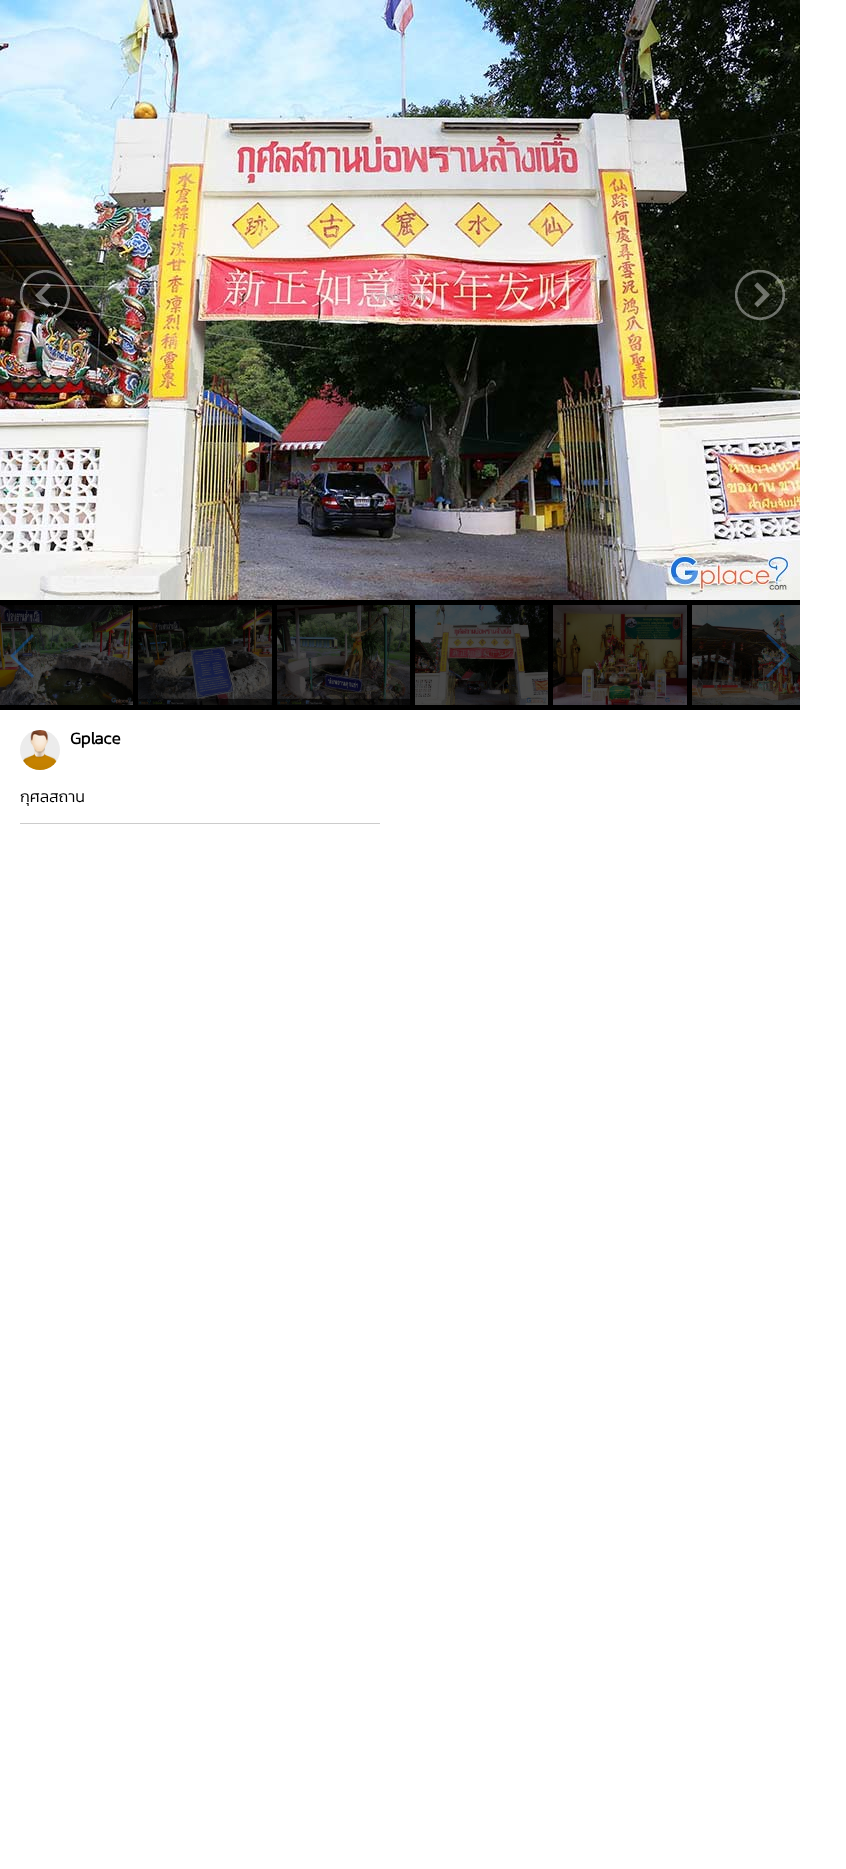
async function draw(canvas) {
	canvas.width = 846;
	canvas.height = 1869;
	const c = canvas.getContext('2d');
	c.miterLimit = 4;
	c.fontKerning = 'normal';
	async function loadImage(src) {
		const img = new Image();
		img.src = src;
		await img.decode();
		return img;
	}

	c.fillStyle = '#fff';
	c.fillRect(0, 0, 846, 1869);
	c.fillStyle = '#000';
	c.fillRect(0, 600, 800, 110);
	c.drawImage(await loadImage('img1.png'), 0, 0, 800, 600);
	c.drawImage(await loadImage('img2.png'), 20, 270, 50, 50);
	c.drawImage(await loadImage('img3.png'), 735, 270, 50, 50);
	c.drawImage(await loadImage('img4.png'), 0, 605, 133, 100);
	c.drawImage(await loadImage('img5.png'), 138, 605, 134, 100);
	c.drawImage(await loadImage('img6.png'), 277, 605, 133, 100);
	c.drawImage(await loadImage('img7.png'), 415, 605, 133, 100);
	c.drawImage(await loadImage('img8.png'), 553, 605, 134, 100);
	c.drawImage(await loadImage('img9.png'), 692, 605, 108, 100);
	c.fillStyle = '#007aff4d';
	c.beginPath();
	c.moveTo(10, 656);
	c.lineTo(32, 634);
	c.lineTo(34, 636);
	c.lineTo(14, 656);
	c.lineTo(34, 676);
	c.lineTo(32, 678);
	c.closePath();
	c.fill();
	c.beginPath();
	c.moveTo(790, 656);
	c.lineTo(768, 678);
	c.lineTo(766, 676);
	c.lineTo(786, 656);
	c.lineTo(766, 636);
	c.lineTo(768, 634);
	c.closePath();
	c.fill();
	c.drawImage(await loadImage('img10.png'), 20, 730, 40, 40);
	c.font = 'bold 17px Kanit';
	c.fillStyle = '#000';
	c.fillText('Gplace', 70, 744);
	c.font = '300 16px Kanit';
	c.fillText('กุศลสถาน', 20, 802);
	c.fillStyle = '#ccc';
	c.fillRect(20, 823, 360, 1);
}

draw(document.querySelector('canvas'));
